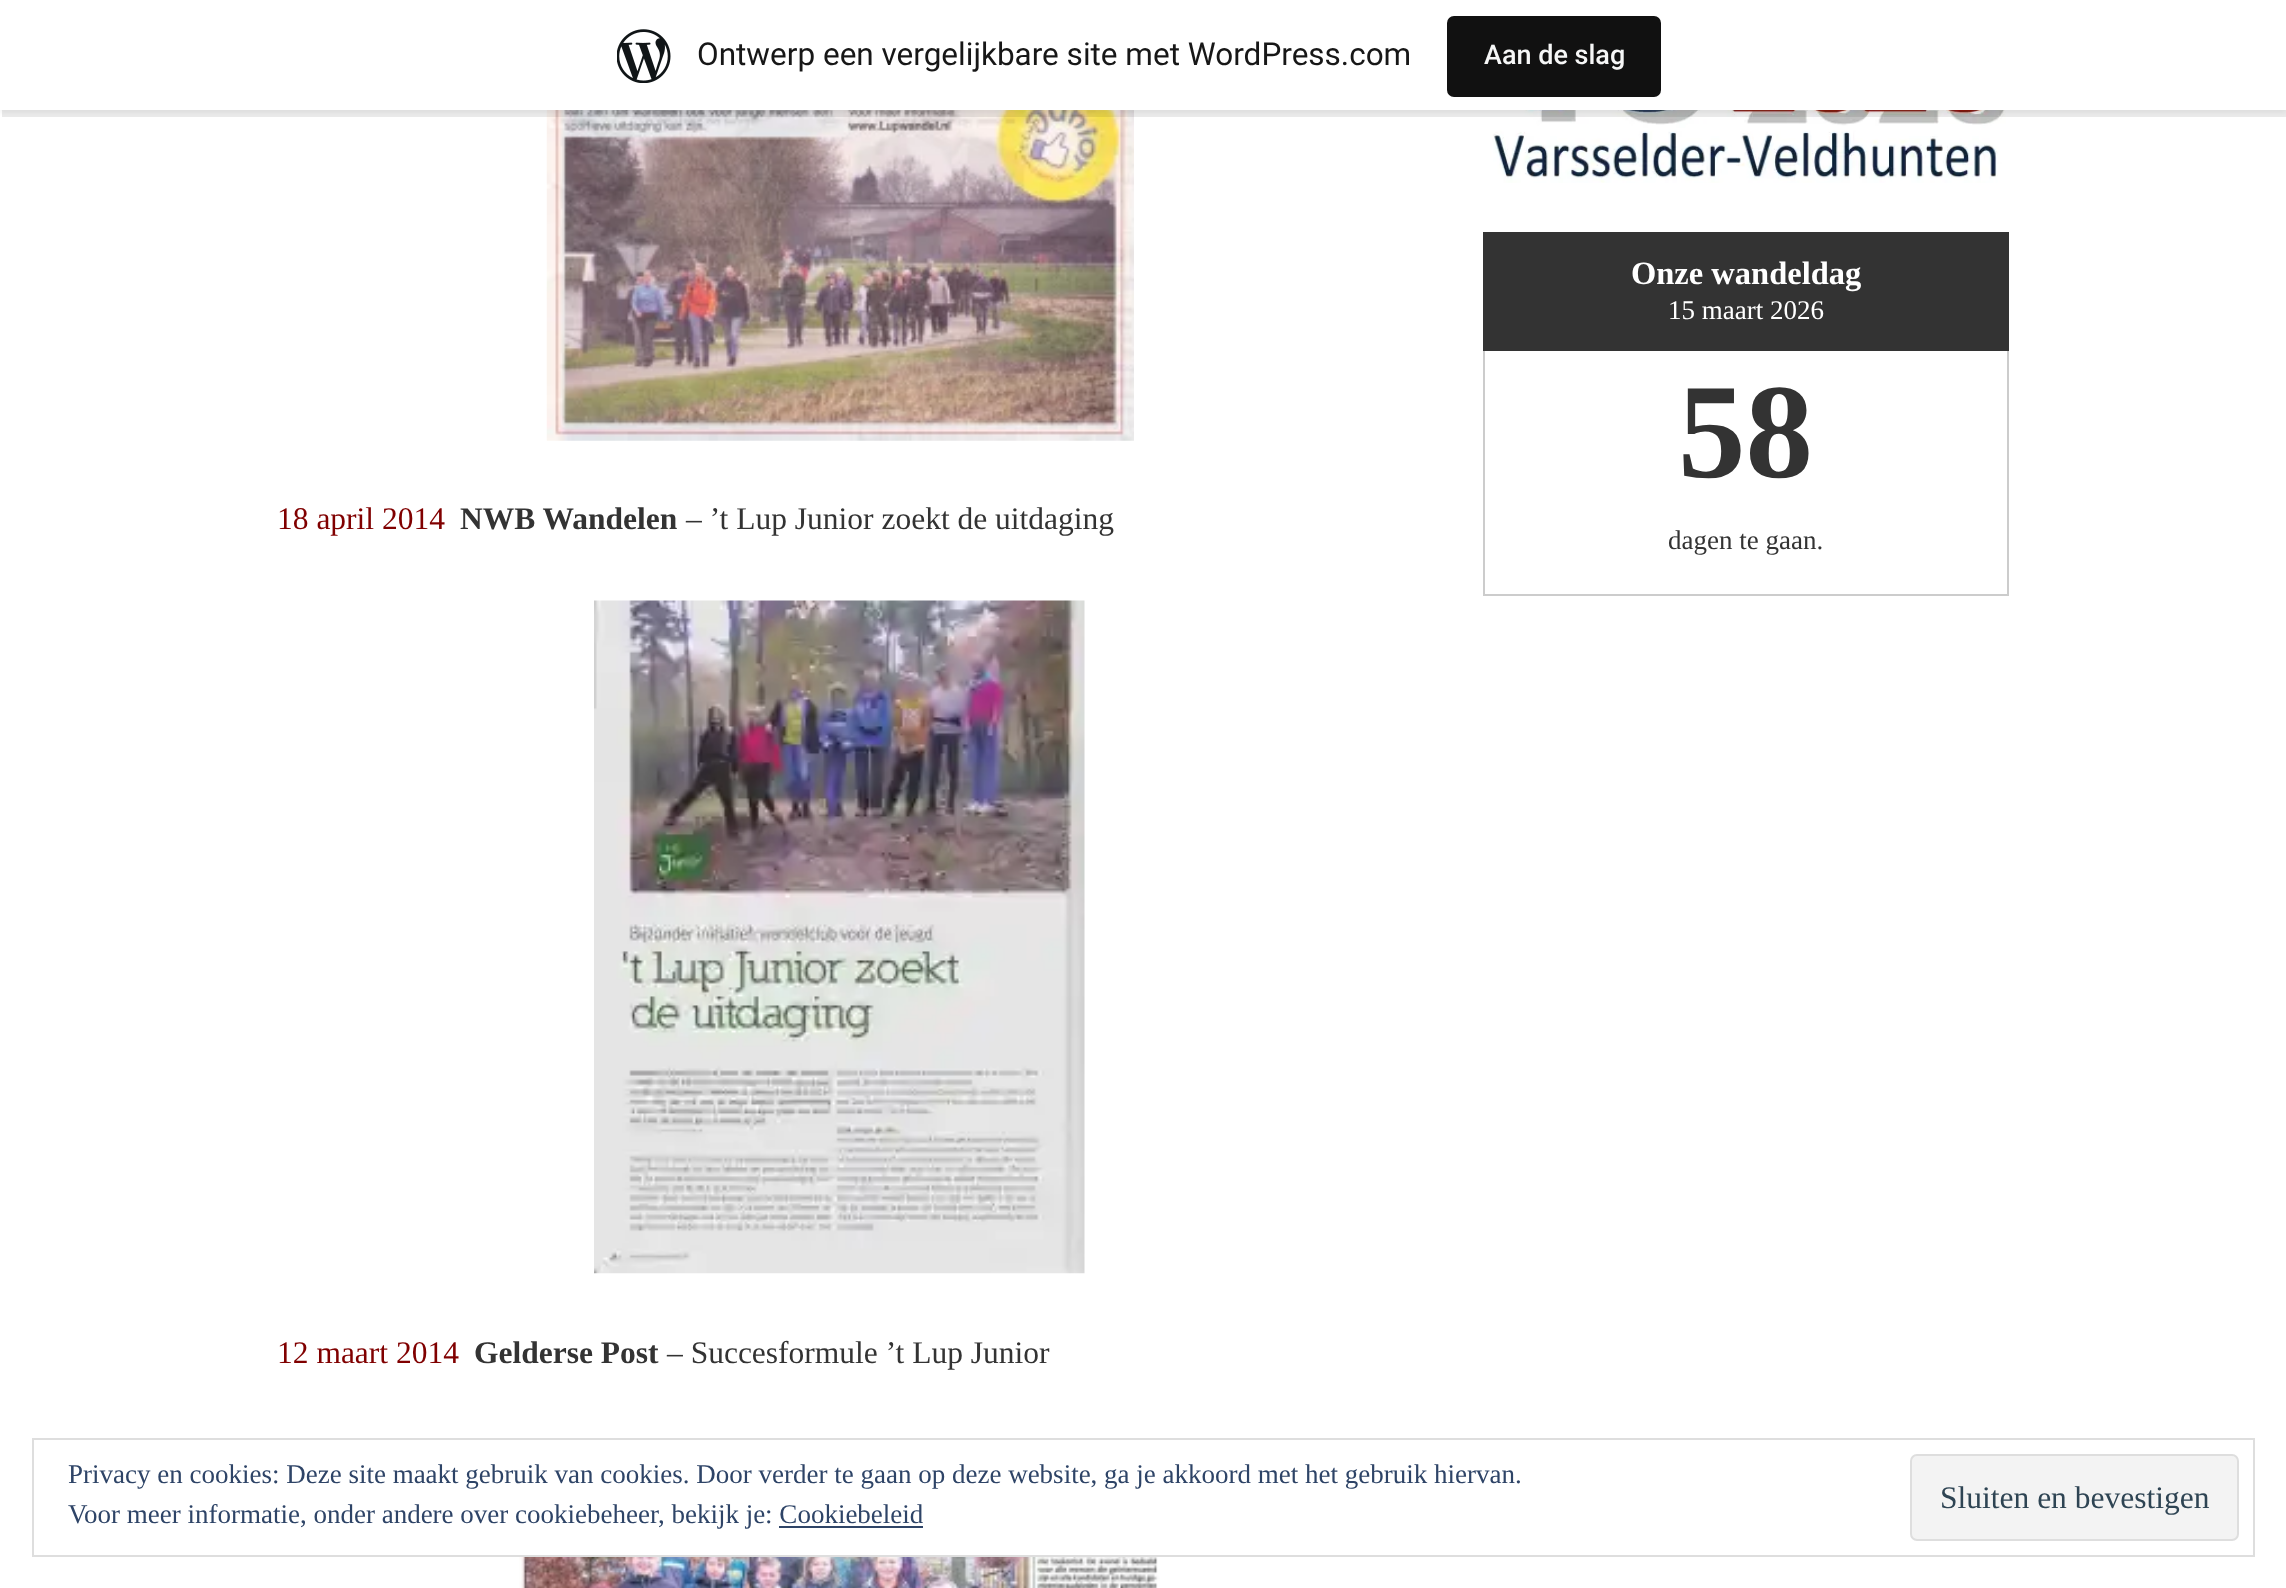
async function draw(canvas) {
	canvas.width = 2286;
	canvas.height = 1588;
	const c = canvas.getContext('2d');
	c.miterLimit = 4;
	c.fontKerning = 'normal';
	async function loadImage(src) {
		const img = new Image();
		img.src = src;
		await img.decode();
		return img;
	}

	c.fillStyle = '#fff';
	c.fillRect(0, 0, 2286, 1588);
	c.drawImage(await loadImage('img2.png'), 1490, 110, 516, 73);
	c.drawImage(await loadImage('img3.png'), 546, 110, 588, 331);
	c.fillStyle = '#0000000d';
	c.filter = 'blur(2px)';
	c.beginPath();
	c.rect(0, 2, 2286, 111);
	c.fill();
	c.filter = 'none';
	c.fillStyle = '#00000014';
	c.beginPath();
	c.moveTo(2, 110);
	c.lineTo(2, 117);
	c.lineTo(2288, 117);
	c.lineTo(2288, 7);
	c.lineTo(2286, 7);
	c.lineTo(2286, 110);
	c.closePath();
	c.fill();
	c.fillStyle = '#fff';
	c.fillRect(0, 0, 2286, 110);
	c.drawImage(await loadImage('img1.png'), 617, 29, 54, 54);
	c.font = '31.5px Roboto';
	c.fillStyle = '#171717';
	c.fillText('Ontwerp een vergelijkbare site met WordPress.com', 697, 65);
	c.fillStyle = '#111';
	c.beginPath();
	c.roundRect(1447, 16, 214, 81, 7);
	c.fill();
	c.font = '500 27px Roboto';
	c.fillStyle = '#f6f7f7';
	c.fillText('Aan de slag', 1484, 64);
	c.fillStyle = '#333';
	c.fillRect(1483, 232, 526, 119);
	c.font = 'bold 32.5px Liberation Serif';
	c.fillStyle = '#fff';
	c.fillText('Onze wandeldag', 1631, 284);
	c.font = '27px Liberation Serif';
	c.fillText('15 maart 2026', 1668, 319);
	for (const [x, y, w, h, color] of [
		[2007, 351, 2, 245, '#ccc'],
		[1483, 594, 526, 2, '#ccc'],
		[1483, 351, 2, 245, '#ccc'],
	]) {
		c.fillStyle = color;
		c.fillRect(x, y, w, h);
	}
	c.font = 'bold 135px Liberation Serif';
	c.fillStyle = '#333';
	c.fillText('58', 1678, 477);
	c.font = '27px Liberation Serif';
	c.fillText('dagen te gaan.', 1668, 549);
	c.font = '31.5px Liberation Serif';
	c.fillStyle = '#800000';
	c.fillText('18 april 2014', 277, 529);
	c.font = 'bold 31.5px Liberation Serif';
	c.fillStyle = '#333';
	c.fillText('NWB Wandelen', 460, 529);
	c.font = '31.5px Liberation Serif';
	c.fillText('– ’t Lup Junior zoekt de uitdaging', 686, 529);
	c.drawImage(await loadImage('img4.png'), 594, 600, 491, 674);
	c.fillStyle = '#800000';
	c.fillText('12 maart 2014', 277, 1363);
	c.font = 'bold 31.5px Liberation Serif';
	c.fillStyle = '#333';
	c.fillText('Gelderse Post', 474, 1363);
	c.font = '31.5px Liberation Serif';
	c.fillText('– Succesformule ’t Lup Junior', 667, 1363);
	c.drawImage(await loadImage('img5.png'), 519, 1557, 641, 31);
	c.strokeStyle = '#dedede';
	c.lineWidth = 2;
	c.strokeRect(33, 1439, 2221, 117);
	c.font = '27px Liberation Serif';
	c.fillStyle = '#2e4467';
	c.fillText('Privacy en cookies: Deze site maakt gebruik van cookies. Door verder te gaan op deze website, ga je akkoord met het gebruik hiervan.', 68, 1483);
	c.fillText('Voor meer informatie, onder andere over cookiebeheer, bekijk je: Cookiebeleid', 68, 1523);
	c.fillStyle = '#f3f3f3';
	c.beginPath();
	c.roundRect(1911, 1455, 327, 85, 6);
	c.fill();
	c.stroke();
	c.font = '31.5px Liberation Serif';
	c.fillStyle = '#2e4453';
	c.fillText('Sluiten en bevestigen', 1940, 1508);
	c.fillStyle = '#2e4467';
	c.fillRect(779, 1526, 144, 2);
}

draw(document.querySelector('canvas'));
